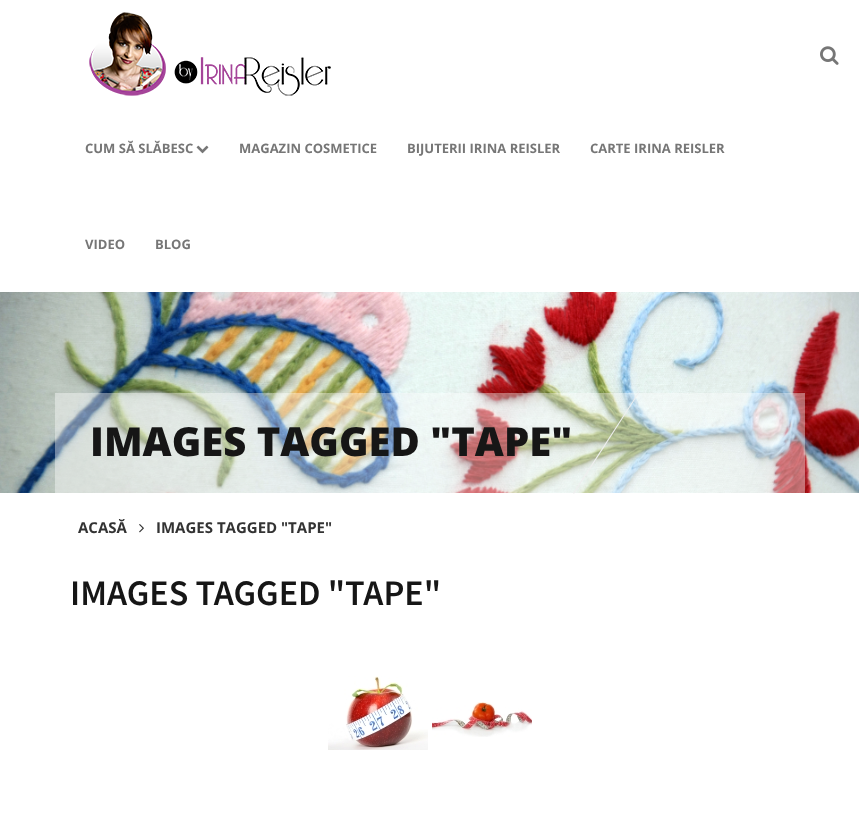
async function draw(canvas) {
	canvas.width = 859;
	canvas.height = 827;
	const c = canvas.getContext('2d');
	c.miterLimit = 4;
	c.fontKerning = 'normal';
	async function loadImage(src) {
		const img = new Image();
		img.src = src;
		await img.decode();
		return img;
	}

	c.fillStyle = '#fff';
	c.fillRect(0, 0, 859, 827);
	c.drawImage(await loadImage('img1.png'), 820, 46, 19, 19);
	c.drawImage(await loadImage('img2.png'), 89, 12, 242, 84);
	c.font = 'bold 13px Open Sans';
	c.fillStyle = '#767676';
	c.fillText('CUM SĂ SLĂBESC', 85, 153);
	c.drawImage(await loadImage('img3.png'), 196, 145, 13, 9);
	for (const [text, x, y] of [
		['MAGAZIN COSMETICE', 239, 153],
		['BIJUTERII IRINA REISLER', 407, 153],
		['CARTE IRINA REISLER', 590, 153],
		['VIDEO', 85, 249],
		['BLOG', 155, 249],
	]) {
		c.fillText(text, x, y);
	}
	c.drawImage(await loadImage('img4.png'), 0, 292, 859, 201);
	c.fillStyle = '#ffffff66';
	c.fillRect(55, 393, 750, 100);
	c.font = '800 40px Open Sans';
	c.fillStyle = '#161616';
	c.fillText('IMAGES TAGGED "TAPE"', 90, 456);
	c.fillStyle = '#efefef';
	c.beginPath();
	c.moveTo(638, 393);
	c.lineTo(639, 393);
	c.lineTo(574, 494);
	c.lineTo(573, 493);
	c.closePath();
	c.fill();
	c.font = 'bold 15px Open Sans';
	c.fillStyle = '#333';
	c.fillText('ACASĂ', 78, 533);
	c.drawImage(await loadImage('img5.png'), 139, 524, 5, 9);
	c.fillText('IMAGES TAGGED "TAPE"', 156, 533);
	c.font = '600 36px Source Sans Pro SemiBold';
	c.fillStyle = '#161616';
	c.fillText('IMAGES TAGGED "TAPE"', 70, 605);
	c.drawImage(await loadImage('img6.png'), 328, 676, 100, 74);
	c.drawImage(await loadImage('img7.png'), 432, 702, 100, 35);
}

draw(document.querySelector('canvas'));
